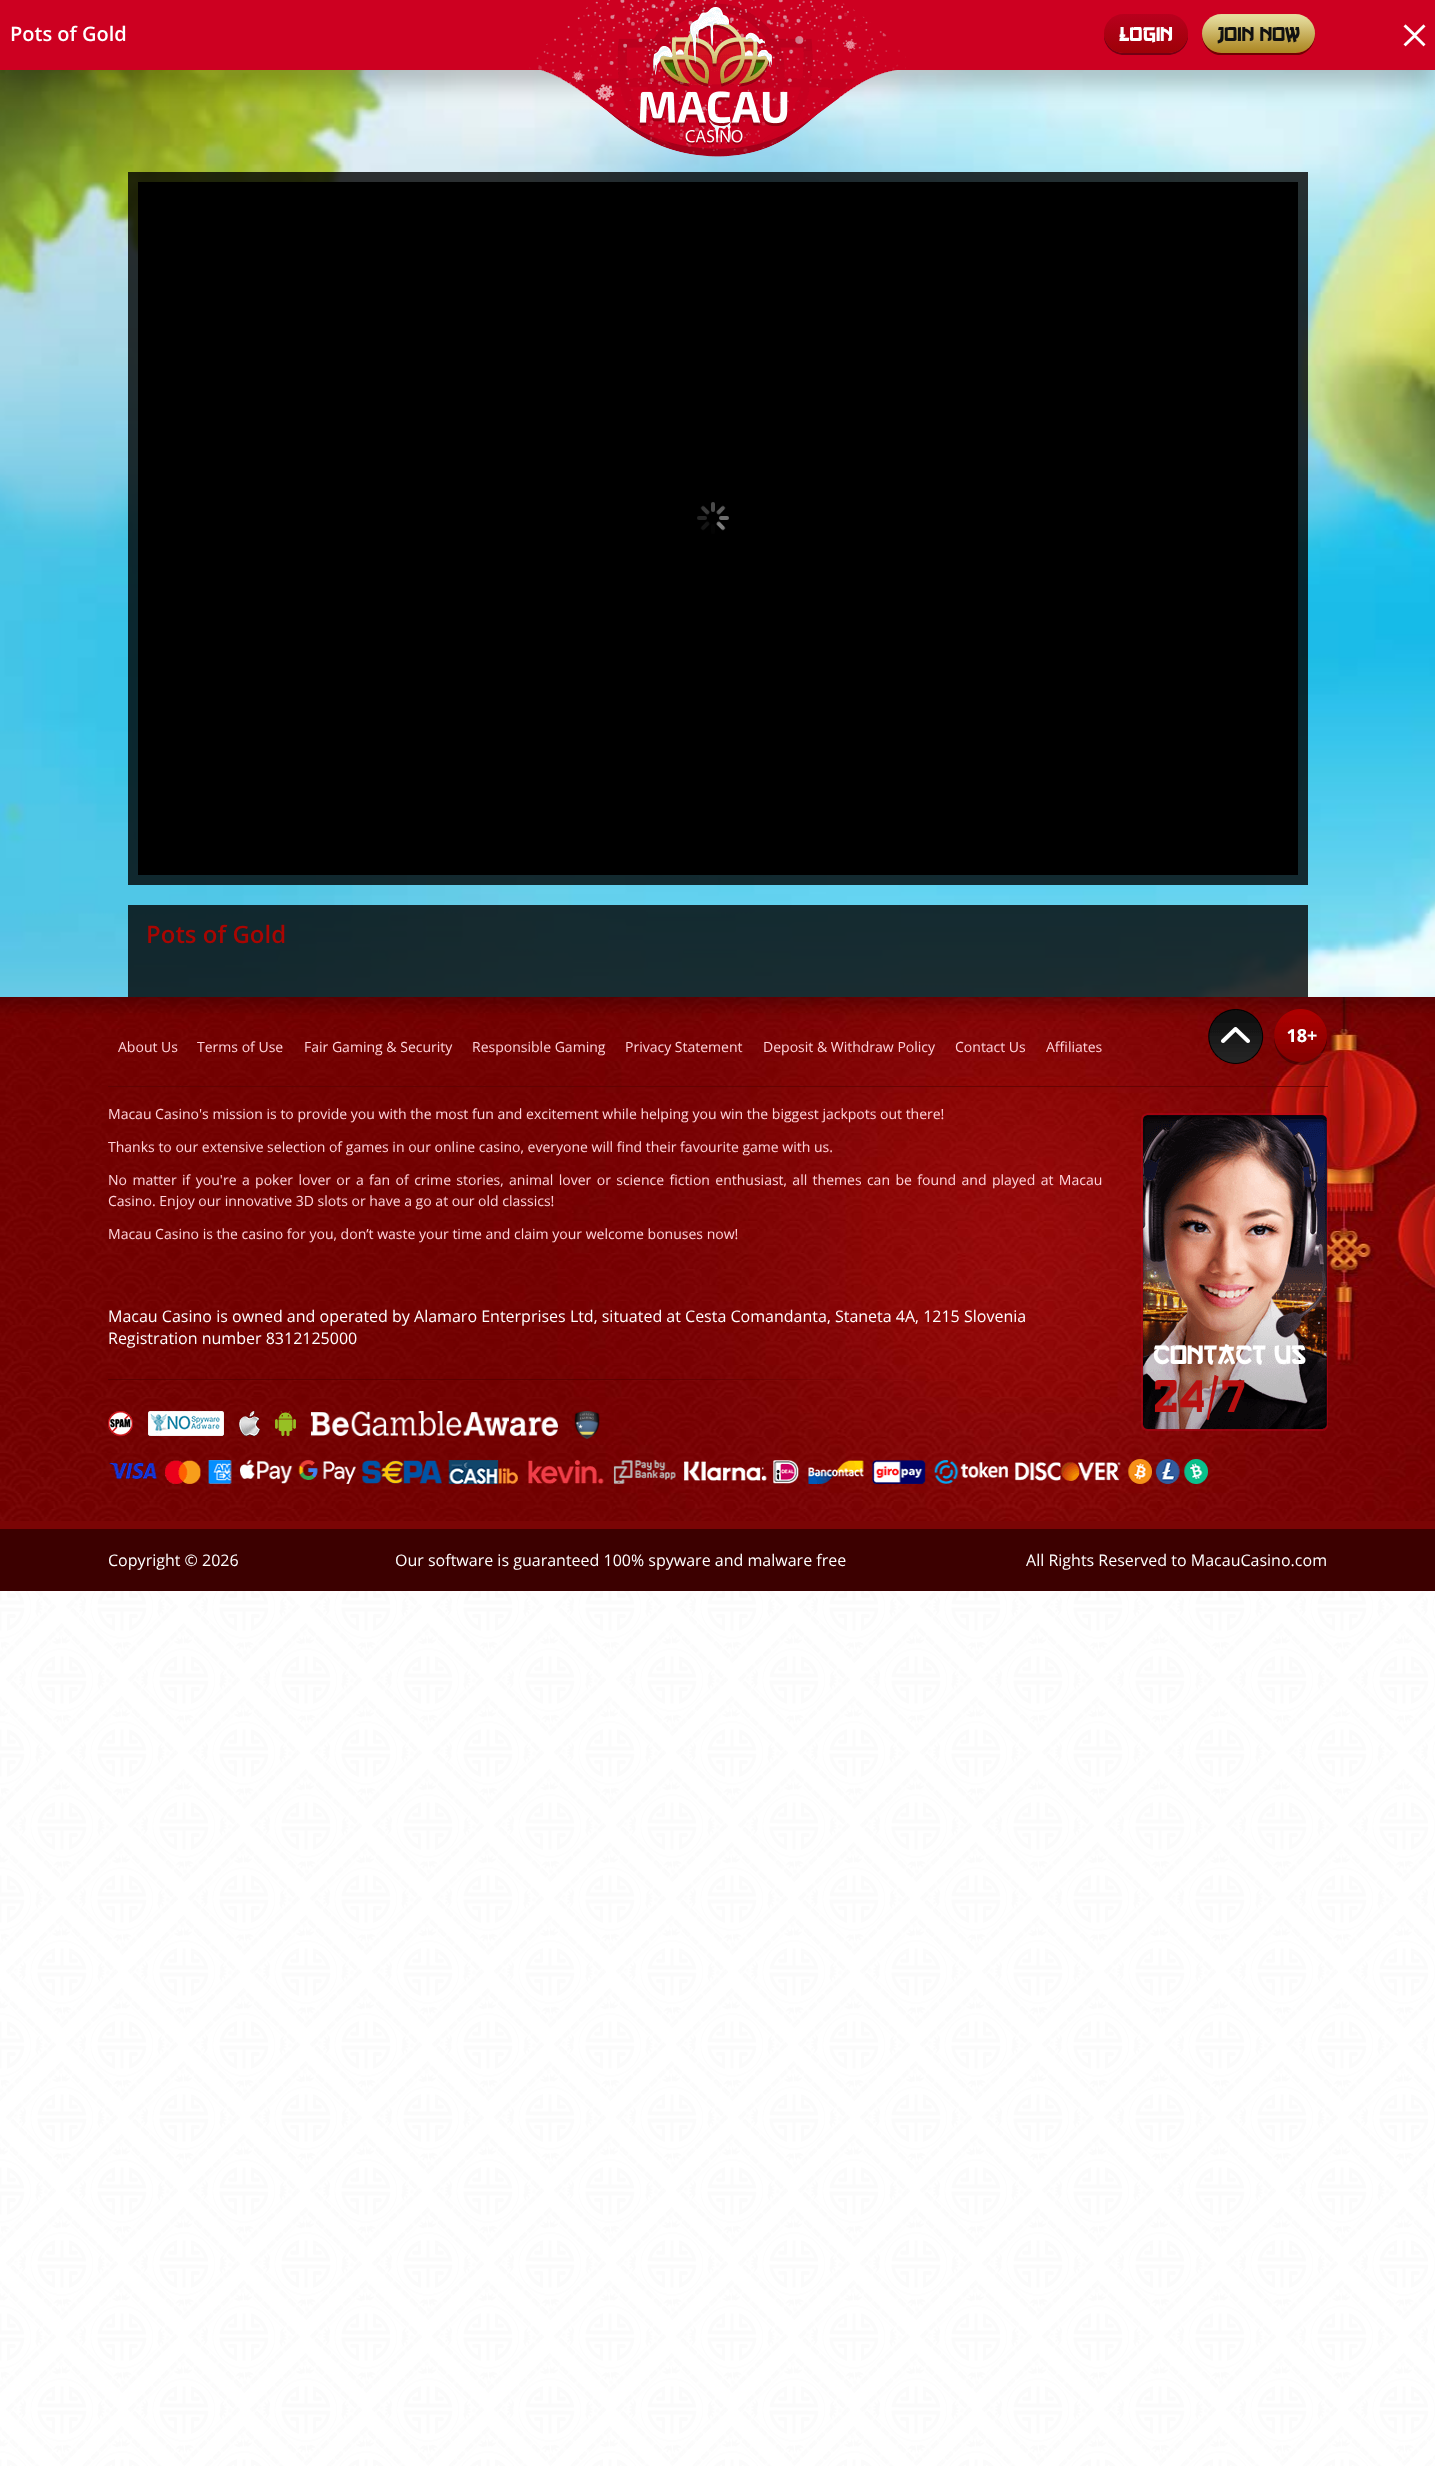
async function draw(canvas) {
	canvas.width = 1435;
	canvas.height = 2466;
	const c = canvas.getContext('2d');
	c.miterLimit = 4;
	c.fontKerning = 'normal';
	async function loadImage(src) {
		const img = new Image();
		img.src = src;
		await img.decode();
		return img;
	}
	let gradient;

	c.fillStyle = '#fff';
	c.fillRect(0, 0, 1435, 2466);
	c.drawImage(await loadImage('img1.png'), 0, 1591, 1435, 875);
	c.drawImage(await loadImage('img2.png'), 0, 70, 1435, 927);
	c.fillStyle = '#00000033';
	c.filter = 'blur(10px)';
	c.beginPath();
	c.rect(0, 15, 1435, 70);
	c.fill();
	c.filter = 'none';
	c.fillStyle = '#cd0021';
	c.fillRect(0, 0, 1435, 70);
	c.font = '600 20px Open Sans';
	c.fillStyle = '#fff';
	c.fillText('Pots of Gold', 10, 41);
	c.drawImage(await loadImage('img3.png'), 1403, 24, 23, 23);
	c.drawImage(await loadImage('img5.png'), 540, 70, 357, 87);
	c.drawImage(await loadImage('img4.png'), 529, 0, 377, 153);
	c.fillStyle = '#730013';
	c.beginPath();
	c.moveTo(1104, 34);
	c.lineTo(1104, 36);
	c.bezierCurveTo(1104, 46, 1113, 55, 1124, 55);
	c.lineTo(1168, 55);
	c.bezierCurveTo(1179, 55, 1188, 46, 1188, 36);
	c.lineTo(1188, 34);
	c.bezierCurveTo(1187, 45, 1179, 53, 1168, 53);
	c.lineTo(1124, 53);
	c.bezierCurveTo(1113, 53, 1105, 45, 1104, 34);
	c.closePath();
	c.fill();
	gradient = c.createLinearGradient(1146, 14, 1146, 53);
	gradient.addColorStop(0, '#b8001d');
	gradient.addColorStop(1, '#9d0107');
	c.fillStyle = gradient;
	c.beginPath();
	c.roundRect(1104, 14, 84, 39, 19.5);
	c.fill();
	c.font = '21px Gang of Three';
	c.fillStyle = '#fff';
	c.fillText('Login', 1119, 41);
	c.fillStyle = '#700003';
	c.beginPath();
	c.moveTo(1202, 34);
	c.bezierCurveTo(1202, 44, 1208, 53, 1218, 55);
	c.lineTo(1234, 55);
	c.lineTo(1299, 55);
	c.bezierCurveTo(1309, 53, 1315, 44, 1315, 34);
	c.bezierCurveTo(1314, 45, 1306, 53, 1296, 53);
	c.lineTo(1222, 53);
	c.bezierCurveTo(1211, 53, 1203, 45, 1202, 34);
	c.closePath();
	c.fill();
	gradient = c.createLinearGradient(1259, 14, 1259, 53);
	gradient.addColorStop(0, '#e6dea0f0');
	gradient.addColorStop(0.02, '#e5dd9e');
	gradient.addColorStop(0.12, '#e1d796');
	gradient.addColorStop(0.24, '#dbcd88');
	gradient.addColorStop(0.76, '#b9993c');
	gradient.addColorStop(0.93, '#af8b29');
	gradient.addColorStop(1, '#ad8723');
	c.fillStyle = gradient;
	c.beginPath();
	c.roundRect(1202, 14, 113, 39, 19.5);
	c.fill();
	c.fillStyle = '#111';
	c.fillText('Join now', 1217, 41);
	c.fillStyle = '#000000cc';
	c.fillRect(128, 172, 1180, 713);
	c.drawImage(await loadImage('img6.png'), 138, 182, 1160, 675);
	c.fillStyle = '#000';
	c.fillRect(138, 857, 1160, 18);
	c.fillStyle = '#000000cc';
	c.fillRect(128, 905, 1180, 92);
	c.font = '600 24px Open Sans';
	c.fillStyle = '#a80602';
	c.fillText('Pots of Gold', 146, 943);
	c.fillStyle = '#7b0505';
	c.fillRect(0, 1521, 1435, 8);
	c.drawImage(await loadImage('img7.png'), 0, 997, 1435, 524);
	c.fillStyle = '#5e0202cc';
	c.fillRect(108, 1086, 1220, 1);
	c.font = '14px Open Sans';
	c.fillStyle = '#ffd3da';
	for (const [text, x, y] of [
		['About Us', 118, 1052],
		['Terms of Use', 197, 1052],
		['Fair Gaming & Security', 304, 1052],
		['Responsible Gaming', 472, 1052],
		['Privacy Statement', 625, 1052],
		['Deposit & Withdraw Policy', 763, 1052],
		['Contact Us', 955, 1052],
		['Affiliates', 1046, 1052],
	]) {
		c.fillText(text, x, y);
	}
	c.drawImage(await loadImage('img8.png'), 1208, 1009, 56, 55);
	c.drawImage(await loadImage('img9.png'), 1274, 1009, 53, 56);
	c.fillText('Macau Casino\'s mission is to provide you with the most fun and excitement while helping you win the biggest jackpots out there!', 108, 1119);
	c.fillText('Thanks to our extensive selection of games in our online casino, everyone will find their favourite game with us.', 108, 1152);
	c.wordSpacing = '1.75px';
	c.fillText('No matter if you\'re a poker lover or a fan of crime stories, animal lover or science fiction enthusiast, all themes can be found and played at Macau', 108, 1185);
	c.wordSpacing = '0px';
	c.fillText('Casino. Enjoy our innovative 3D slots or have a go at our old classics!', 108, 1206);
	c.fillText('Macau Casino is the casino for you, don’t waste your time and claim your welcome bonuses now!', 108, 1239);
	c.font = '16px Open Sans';
	c.fillStyle = '#fff';
	c.fillText('Macau Casino is owned and operated by Alamaro Enterprises Ltd, situated at Cesta Comandanta, Staneta 4A, 1215 Slovenia', 108, 1322);
	c.fillText('Registration number 8312125000', 108, 1344);
	c.drawImage(await loadImage('img10.png'), 1141, 1113, 187, 318);
	c.font = '28px Gang of Three';
	c.fillText('Contact Us', 1153, 1364);
	c.font = '48px Gang of Three';
	c.fillStyle = '#b81010';
	c.fillText('24/7', 1153, 1412);
	c.drawImage(await loadImage('img11.png'), 108, 1411, 25, 25);
	c.drawImage(await loadImage('img12.png'), 148, 1411, 76, 25);
	c.drawImage(await loadImage('img13.png'), 239, 1411, 21, 25);
	c.drawImage(await loadImage('img14.png'), 275, 1411, 21, 25);
	c.drawImage(await loadImage('img15.png'), 311, 1411, 247, 25);
	c.drawImage(await loadImage('img16.png'), 574, 1411, 26, 28);
	c.drawImage(await loadImage('img17.png'), 109, 1459, 1099, 25);
	c.fillStyle = '#3c0000';
	c.fillRect(0, 1529, 1435, 62);
	c.font = '16px Open Sans';
	c.fillStyle = '#fff';
	for (const [text, x, y] of [
		['Copyright © 2026', 108, 1566],
		['Our software is guaranteed 100% spyware and malware free', 395, 1566],
		['All Rights Reserved to MacauCasino.com', 1026, 1566],
	]) {
		c.fillText(text, x, y);
	}
}

draw(document.querySelector('canvas'));
